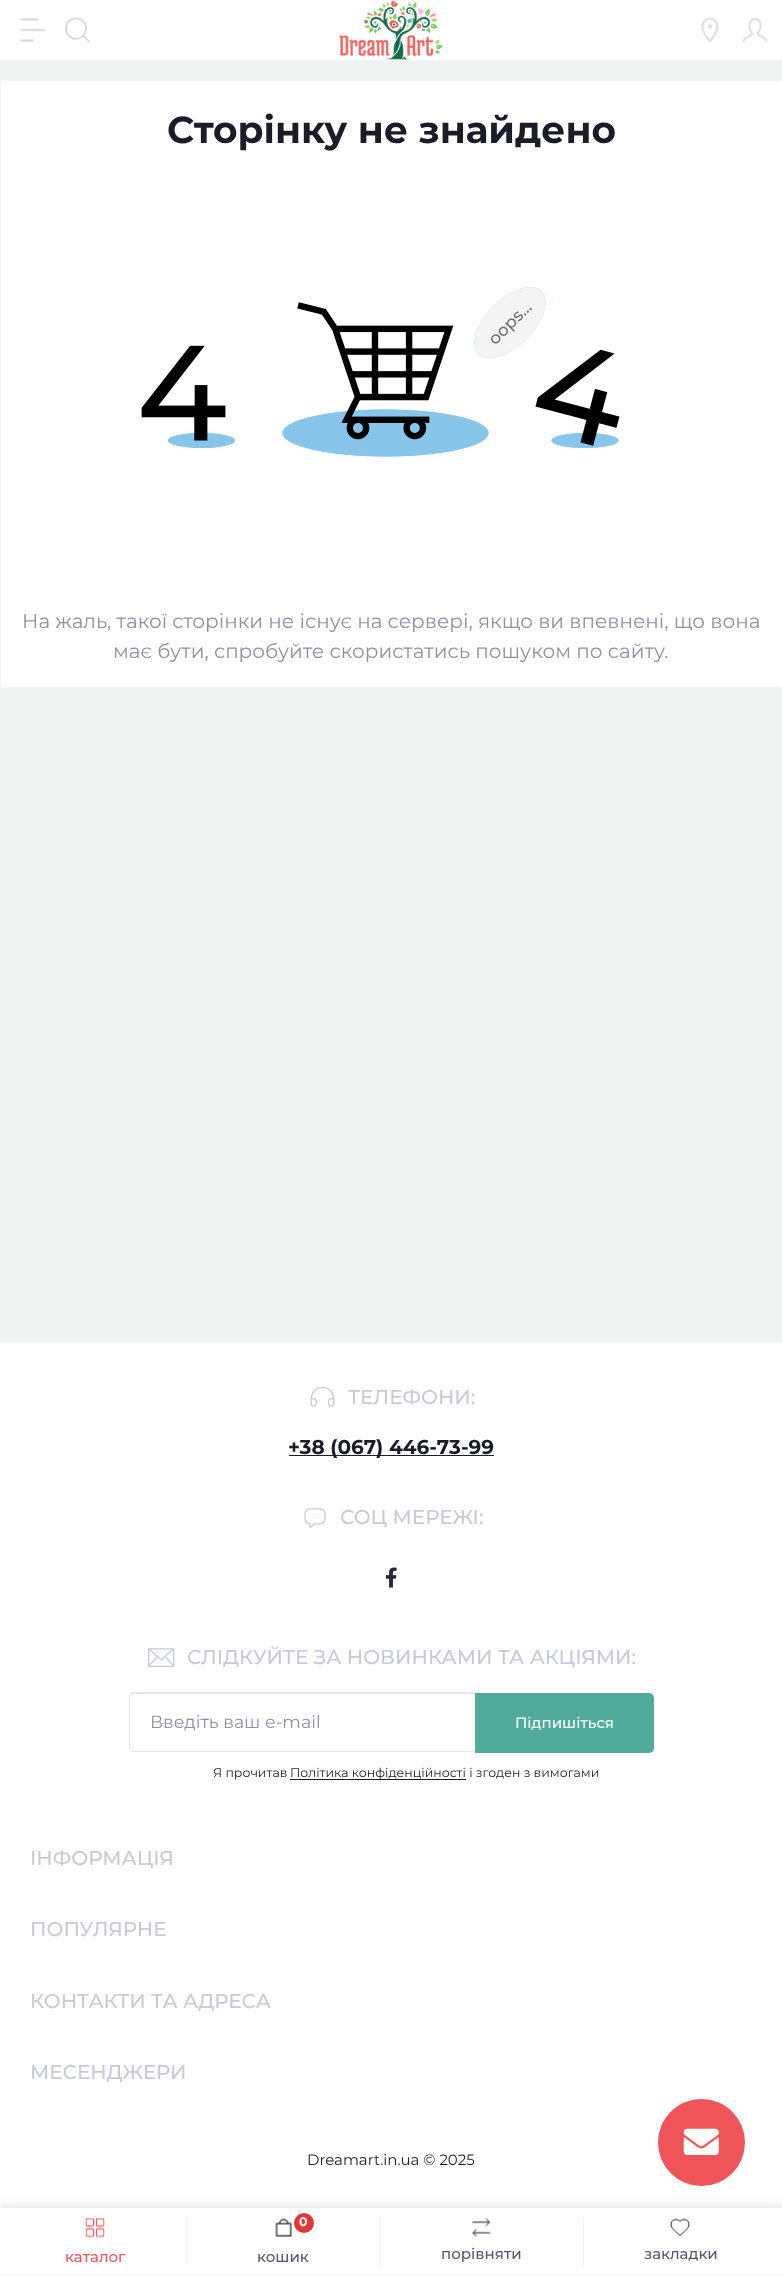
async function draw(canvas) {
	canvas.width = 782;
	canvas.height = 2276;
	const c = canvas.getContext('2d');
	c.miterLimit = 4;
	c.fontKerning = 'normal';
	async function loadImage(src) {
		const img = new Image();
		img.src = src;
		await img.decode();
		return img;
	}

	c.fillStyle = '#f2f4f4';
	c.fillRect(0, 0, 782, 2276);
	c.fillStyle = '#fff';
	c.fillRect(0, 0, 782, 60);
	c.drawImage(await loadImage('img1.png'), 20, 18, 25, 24);
	c.drawImage(await loadImage('img2.png'), 65, 17, 25, 26);
	c.drawImage(await loadImage('img3.png'), 339, 0, 104, 60);
	c.drawImage(await loadImage('img4.png'), 701, 17, 18, 26);
	c.drawImage(await loadImage('img5.png'), 742, 18, 26, 25);
	c.beginPath();
	c.rect(0.5, 80.5, 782, 607);
	c.fill();
	c.strokeStyle = '#f2f4f8';
	c.stroke();
	c.font = 'bold 37.5px Montserrat';
	c.fillStyle = '#1c1c28';
	c.fillText('Сторінку не знайдено', 167, 143);
	c.drawImage(await loadImage('img6.png'), 141, 287, 479, 170);
	c.font = '20px Montserrat';
	c.fillStyle = '#8f90a6';
	c.fillText('На жаль, такої сторінки не існує на сервері, якщо ви впевнені, що вона', 22, 628);
	c.fillText('має бути, спробуйте скористатись пошуком по сайту.', 113, 658);
	c.fillStyle = '#fff';
	c.fillRect(0, 1343, 782, 865);
	c.drawImage(await loadImage('img7.png'), 310, 1386, 25, 21);
	c.font = '500 20px Montserrat';
	c.fillStyle = '#c7c9d9';
	c.fillText('ТЕЛЕФОНИ:', 348, 1404);
	c.fillStyle = '#1c1c28';
	c.fillRect(289, 1455, 205, 1);
	c.font = 'bold 20px Montserrat';
	c.fillText('+38 (067) 446-73-99', 288, 1454);
	c.drawImage(await loadImage('img8.png'), 304, 1508, 22, 21);
	c.font = '500 20px Montserrat';
	c.fillStyle = '#c7c9d9';
	c.fillText('СОЦ МЕРЕЖІ:', 340, 1524);
	c.drawImage(await loadImage('img9.png'), 385, 1567, 12, 21);
	c.drawImage(await loadImage('img10.png'), 148, 1648, 27, 19);
	c.fillText('СЛІДКУЙТЕ ЗА НОВИНКАМИ ТА АКЦІЯМИ:', 187, 1664);
	c.fillStyle = '#e4e4eb';
	c.beginPath();
	c.moveTo(134, 1692);
	c.lineTo(476, 1692);
	c.lineTo(476, 1752);
	c.lineTo(134, 1752);
	c.bezierCurveTo(131, 1752, 129, 1750, 129, 1748);
	c.lineTo(129, 1698);
	c.bezierCurveTo(129, 1695, 131, 1692, 134, 1692);
	c.closePath();
	c.moveTo(134, 1694);
	c.lineTo(476, 1694);
	c.lineTo(476, 1751);
	c.lineTo(134, 1751);
	c.bezierCurveTo(132, 1751, 130, 1750, 130, 1748);
	c.lineTo(130, 1698);
	c.bezierCurveTo(130, 1695, 132, 1694, 134, 1694);
	c.closePath();
	c.fill('evenodd');
	c.font = '17.5px Montserrat';
	c.fillStyle = '#8f90a6';
	c.fillText('Введіть ваш e-mail', 150, 1728);
	c.fillStyle = '#50ab9b';
	c.beginPath();
	c.roundRect(475, 1693, 179, 60, [0, 5, 5, 0]);
	c.fill();
	c.font = '500 15px Montserrat';
	c.fillStyle = '#fff';
	c.fillText('Підпишіться', 515, 1728);
	c.font = '12.5px Montserrat';
	c.fillStyle = '#1c1c28';
	c.fillText('Я прочитав', 213, 1777);
	c.fillRect(290, 1779, 176, 1);
	c.fillText('Політика конфіденційності і згоден з вимогами', 290, 1777);
	c.font = '500 20px Montserrat';
	c.fillStyle = '#c7c9d9';
	for (const [text, x, y] of [
		['ІНФОРМАЦІЯ', 30, 1865],
		['ПОПУЛЯРНЕ', 30, 1936],
		['КОНТАКТИ ТА АДРЕСА', 30, 2008],
		['МЕСЕНДЖЕРИ', 30, 2079],
	]) {
		c.fillText(text, x, y);
	}
	c.font = '15px Montserrat';
	c.fillStyle = '#1c1c28';
	c.fillText('Dreamart.in.ua © 2025', 307, 2165);
	c.fillStyle = '#ef5558';
	c.beginPath();
	c.arc(701.5, 2142.5, 43.5, 0, 2 * Math.PI);
	c.fill();
	c.drawImage(await loadImage('img11.png'), 683, 2128, 36, 27);
	c.fillStyle = '#60617029';
	c.filter = 'blur(5px)';
	c.beginPath();
	c.rect(0, 2205, 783, 69);
	c.fill();
	c.filter = 'none';
	c.fillStyle = '#fff';
	c.fillRect(0, 2208, 782, 67);
	c.fillStyle = '#f2f4f8';
	c.fillRect(0, 2275, 782, 1);
	c.drawImage(await loadImage('img12.png'), 85, 2218, 20, 20);
	c.font = '500 15px Montserrat';
	c.fillStyle = '#ef5558';
	c.fillText('каталог', 65, 2262);
	c.fillStyle = '#f2f2f5';
	c.fillRect(186, 2218, 1, 47);
	c.drawImage(await loadImage('img13.png'), 275, 2218, 17, 19);
	c.fillStyle = '#e53535';
	c.beginPath();
	c.arc(304, 2223, 10, 0, 2 * Math.PI);
	c.fill();
	c.font = 'bold 12.5px Montserrat';
	c.fillStyle = '#fff';
	c.fillText('0', 299, 2226);
	c.font = '500 15px Montserrat';
	c.fillStyle = '#555770';
	c.fillText('кошик', 257, 2262);
	c.fillStyle = '#f2f2f5';
	c.fillRect(380, 2218, 1, 47);
	c.drawImage(await loadImage('img14.png'), 472, 2217, 19, 20);
	c.fillStyle = '#555770';
	c.fillText('порівняти', 441, 2259);
	c.fillStyle = '#f2f2f5';
	c.fillRect(583, 2218, 1, 47);
	c.drawImage(await loadImage('img15.png'), 670, 2218, 20, 19);
	c.fillStyle = '#555770';
	c.fillText('закладки', 644, 2259);
}

draw(document.querySelector('canvas'));
